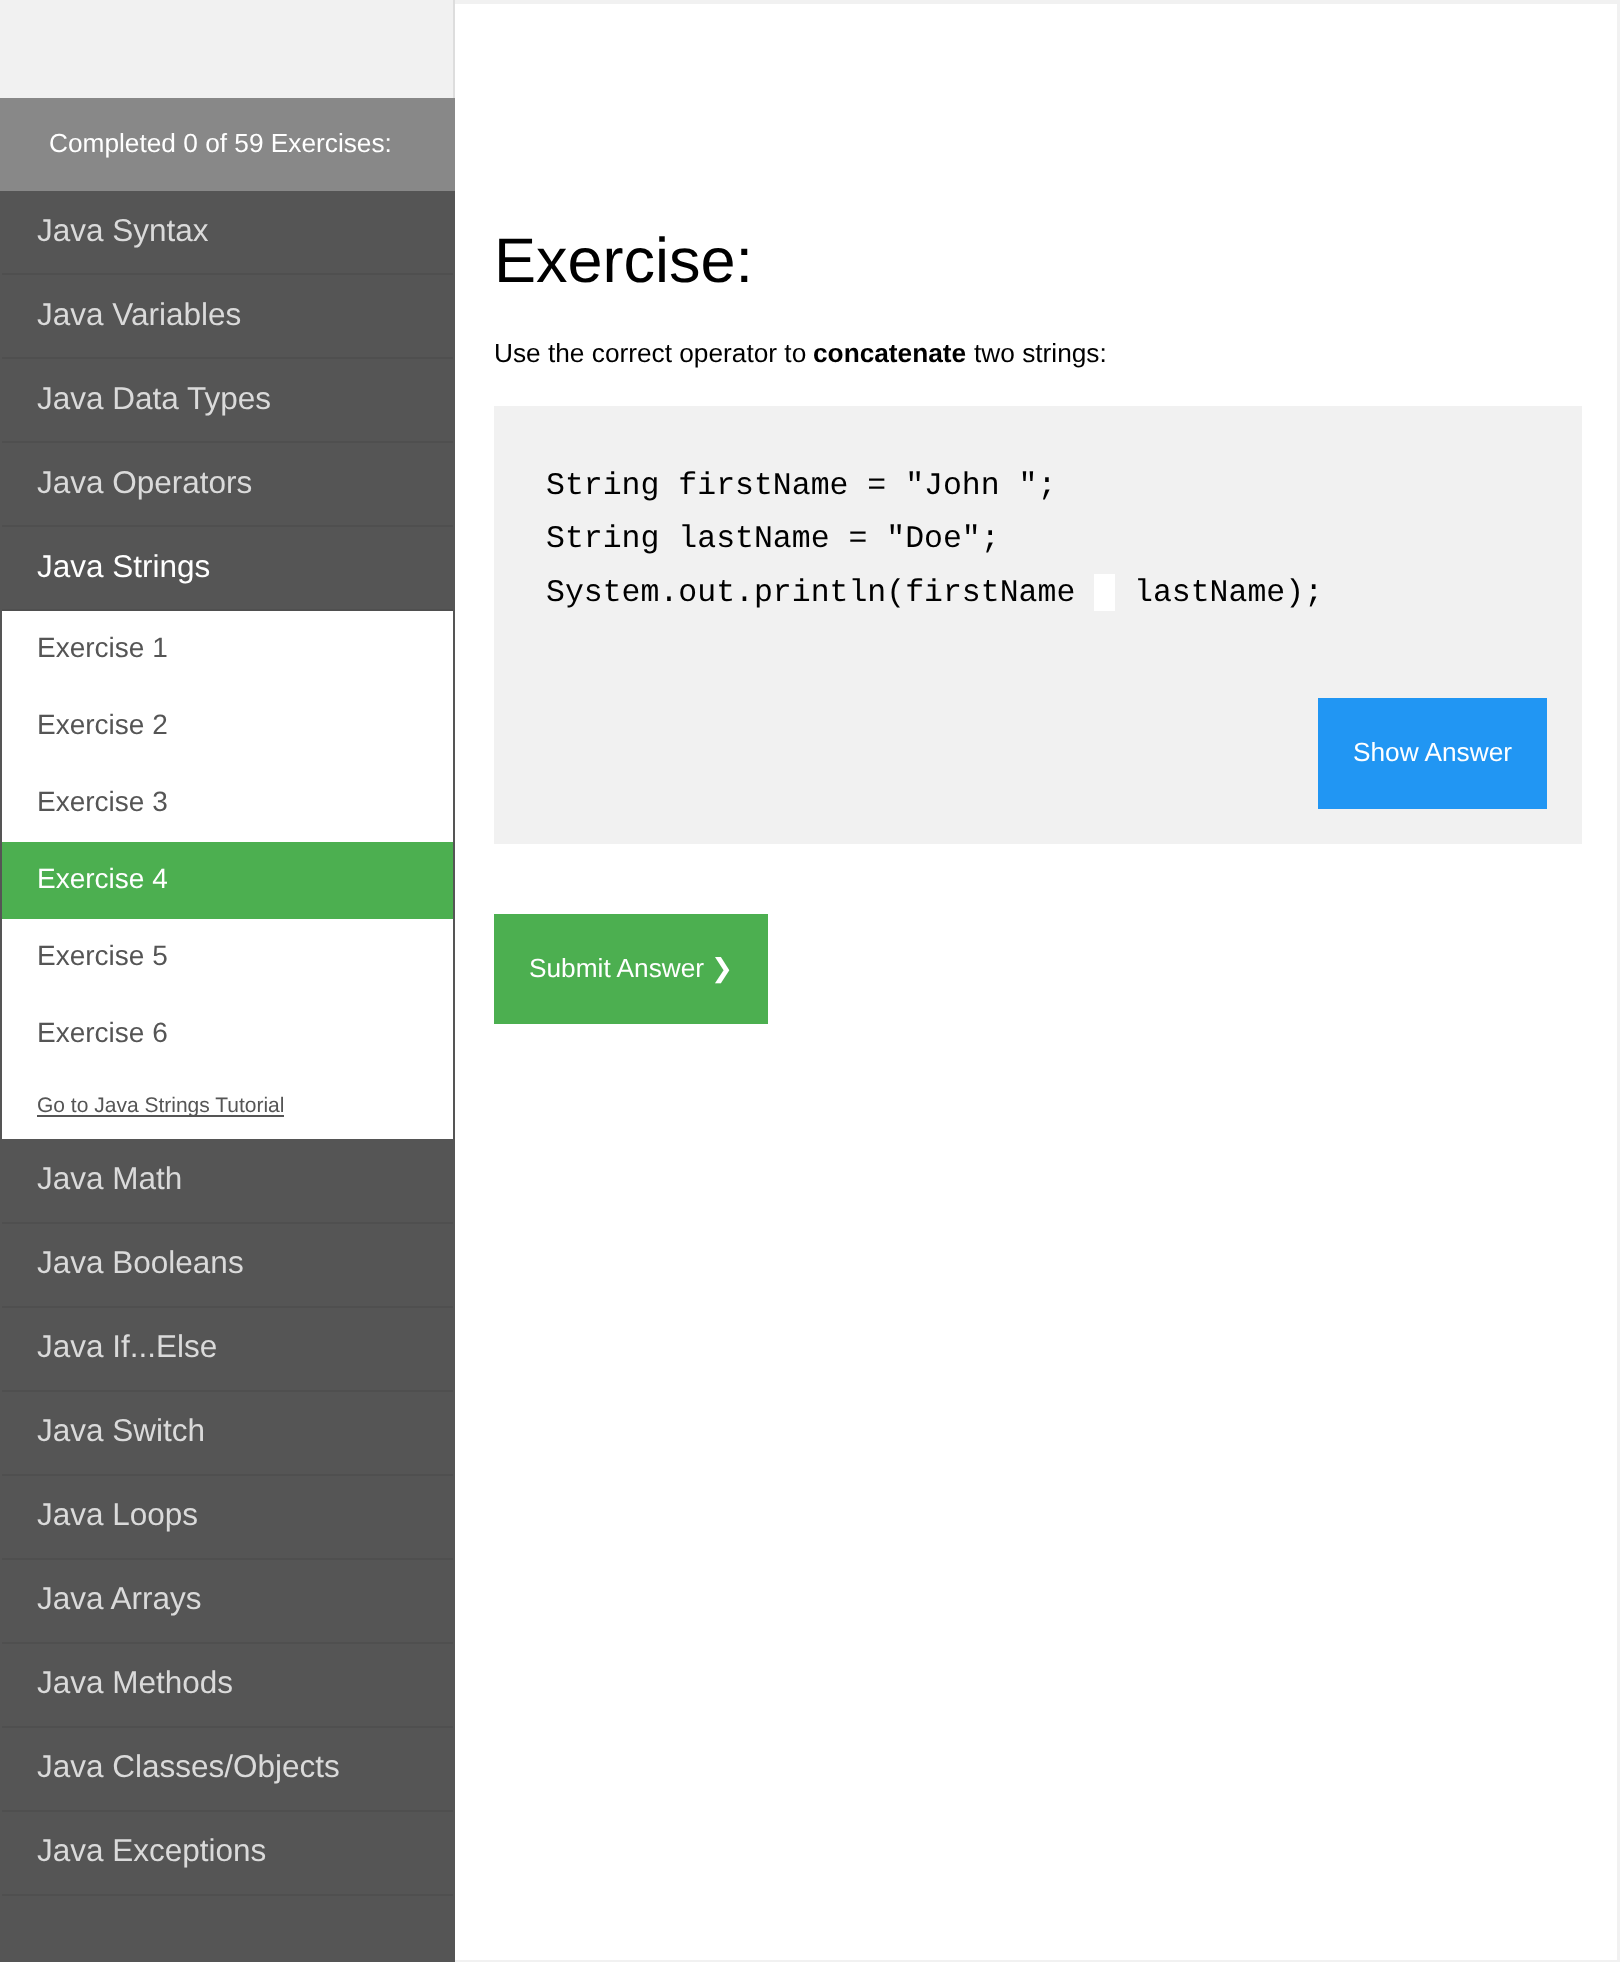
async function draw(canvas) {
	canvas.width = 1620;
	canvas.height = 1962;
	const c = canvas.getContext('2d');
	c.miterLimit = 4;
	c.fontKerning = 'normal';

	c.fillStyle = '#f1f1f1';
	c.fillRect(0, 0, 1620, 1962);
	c.fillStyle = '#888';
	c.fillRect(0, 98, 455, 93);
	c.fillStyle = '#ddd';
	c.fillRect(453, 0, 2, 98);
	c.font = '26.25px Liberation Sans';
	c.fillStyle = '#fff';
	c.fillText('Completed 0 of 59 Exercises:', 49, 152);
	c.fillStyle = '#555';
	c.fillRect(0, 191, 455, 1771);
	c.fillStyle = '#4f4f4f';
	c.fillRect(2, 273, 451, 2);
	c.font = '31.5px Liberation Sans';
	c.fillStyle = '#dadada';
	c.fillText('Java Syntax', 37, 241);
	c.fillStyle = '#4f4f4f';
	c.fillRect(2, 357, 451, 2);
	c.fillStyle = '#dadada';
	c.fillText('Java Variables', 37, 325);
	c.fillStyle = '#4f4f4f';
	c.fillRect(2, 441, 451, 2);
	c.fillStyle = '#dadada';
	c.fillText('Java Data Types', 37, 409);
	c.fillStyle = '#4f4f4f';
	c.fillRect(2, 525, 451, 2);
	c.fillStyle = '#dadada';
	c.fillText('Java Operators', 37, 493);
	c.fillStyle = '#4f4f4f';
	c.fillRect(2, 609, 451, 2);
	c.fillStyle = '#fff';
	c.fillText('Java Strings', 37, 577);
	c.fillRect(2, 611, 451, 231);
	c.font = '28px Liberation Sans';
	c.fillStyle = '#555';
	for (const [text, x, y] of [
		['Exercise 1', 37, 657],
		['Exercise 2', 37, 734],
		['Exercise 3', 37, 811],
	]) {
		c.fillText(text, x, y);
	}
	c.fillStyle = '#4caf50';
	c.fillRect(2, 842, 451, 77);
	c.fillStyle = '#fff';
	c.fillText('Exercise 4', 37, 888);
	c.fillRect(2, 919, 451, 220);
	c.fillStyle = '#555';
	c.fillText('Exercise 5', 37, 965);
	c.fillText('Exercise 6', 37, 1042);
	c.fillRect(37, 1115, 247, 2);
	c.font = '21px Liberation Sans';
	c.fillText('Go to Java Strings Tutorial', 37, 1112);
	c.fillStyle = '#4f4f4f';
	c.fillRect(2, 1222, 451, 2);
	c.font = '31.5px Liberation Sans';
	c.fillStyle = '#dadada';
	c.fillText('Java Math', 37, 1189);
	c.fillStyle = '#4f4f4f';
	c.fillRect(2, 1306, 451, 2);
	c.fillStyle = '#dadada';
	c.fillText('Java Booleans', 37, 1273);
	c.fillStyle = '#4f4f4f';
	c.fillRect(2, 1390, 451, 2);
	c.fillStyle = '#dadada';
	c.fillText('Java If...Else', 37, 1357);
	c.fillStyle = '#4f4f4f';
	c.fillRect(2, 1474, 451, 2);
	c.fillStyle = '#dadada';
	c.fillText('Java Switch', 37, 1441);
	c.fillStyle = '#4f4f4f';
	c.fillRect(2, 1558, 451, 2);
	c.fillStyle = '#dadada';
	c.fillText('Java Loops', 37, 1525);
	c.fillStyle = '#4f4f4f';
	c.fillRect(2, 1642, 451, 2);
	c.fillStyle = '#dadada';
	c.fillText('Java Arrays', 37, 1609);
	c.fillStyle = '#4f4f4f';
	c.fillRect(2, 1726, 451, 2);
	c.fillStyle = '#dadada';
	c.fillText('Java Methods', 37, 1693);
	c.fillStyle = '#4f4f4f';
	c.fillRect(2, 1810, 451, 2);
	c.fillStyle = '#dadada';
	c.fillText('Java Classes/Objects', 37, 1777);
	c.fillStyle = '#4f4f4f';
	c.fillRect(2, 1894, 451, 2);
	c.fillStyle = '#dadada';
	c.fillText('Java Exceptions', 37, 1861);
	c.fillStyle = '#fff';
	c.fillRect(455, 4, 1162, 1956);
	c.font = '63px Liberation Sans';
	c.fillStyle = '#000';
	c.fillText('Exercise:', 494, 282);
	c.font = '26.25px Liberation Sans';
	c.fillText('Use the correct operator to', 494, 362);
	c.font = 'bold 26.25px Liberation Sans';
	c.fillText('concatenate', 813, 362);
	c.font = '26.25px Liberation Sans';
	c.fillText('two strings:', 974, 362);
	c.fillStyle = '#f1f1f1';
	c.fillRect(494, 406, 1088, 438);
	c.font = '31.5px Liberation Mono';
	c.fillStyle = '#000';
	for (const [text, x, y] of [
		['String firstName = "John ";', 546, 494],
		['String lastName = "Doe";', 546, 547],
		['System.out.println(firstName', 546, 601],
	]) {
		c.fillText(text, x, y);
	}
	c.fillStyle = '#fff';
	c.fillRect(1094, 574, 21, 37);
	c.fillStyle = '#000';
	c.fillText('lastName);', 1134, 601);
	c.fillStyle = '#2196f3';
	c.fillRect(1318, 698, 229, 111);
	c.font = '26.25px Liberation Sans';
	c.fillStyle = '#fff';
	c.fillText('Show Answer', 1353, 761);
	c.fillStyle = '#4caf50';
	c.fillRect(494, 914, 274, 110);
	c.fillStyle = '#fff';
	c.fillText('Submit Answer', 529, 977);
	c.font = '26.25px DejaVu Sans';
	c.fillText('❯', 711, 977);
}

draw(document.querySelector('canvas'));
